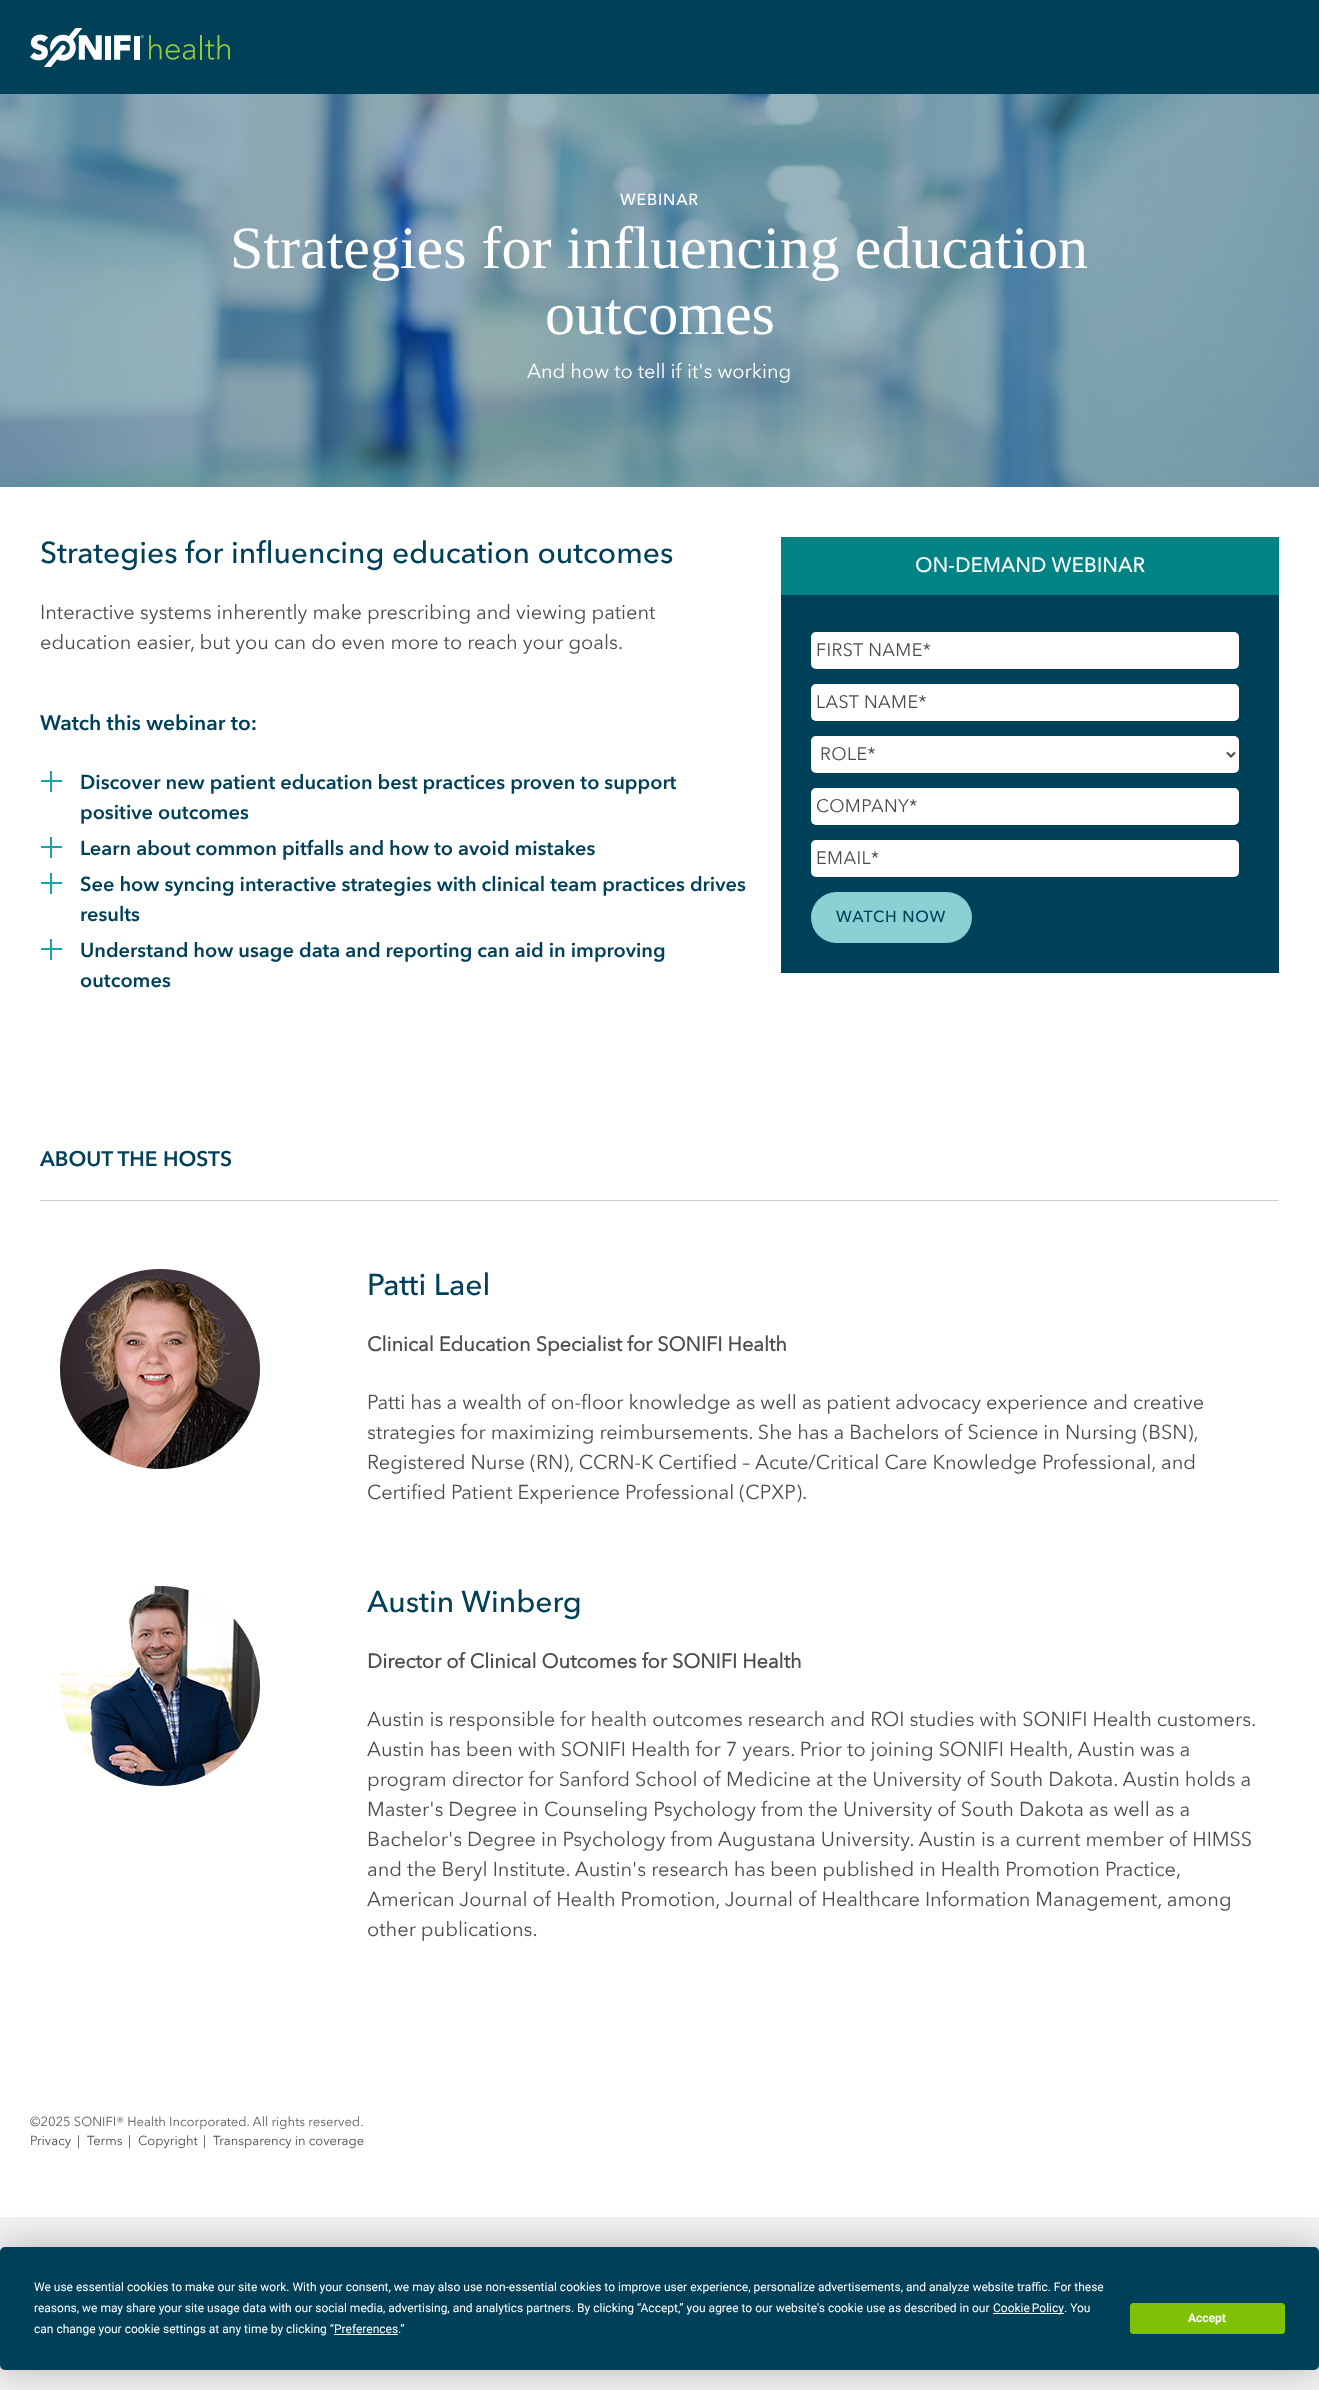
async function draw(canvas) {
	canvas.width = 1319;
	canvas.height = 2390;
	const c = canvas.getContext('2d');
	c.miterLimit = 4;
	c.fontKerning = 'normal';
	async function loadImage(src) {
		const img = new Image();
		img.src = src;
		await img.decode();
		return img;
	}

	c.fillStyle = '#f2f2f2';
	c.fillRect(0, 0, 1319, 2390);
	c.fillStyle = '#fff';
	c.fillRect(0, 487, 1319, 1730);
	c.fillStyle = '#004159';
	c.fillRect(0, 0, 1319, 94);
	c.drawImage(await loadImage('img1.png'), 30, 28, 200, 39);
	c.drawImage(await loadImage('img2.png'), 0, 94, 1319, 393);
	c.letterSpacing = '0.75px';
	c.font = '500 16px Avenir Next';
	c.fillStyle = '#fff';
	c.fillText('WEBINAR', 620, 205);
	c.letterSpacing = '0px';
	c.font = '60px Liberation Serif';
	c.fillText('Strategies for influencing education', 230, 268);
	c.fillText('outcomes', 545, 334);
	c.font = '20px Avenir Next';
	c.fillText('And how to tell if it\'s working', 527, 378);
	c.font = '500 30px Avenir Next';
	c.fillStyle = '#004159';
	c.fillText('Strategies for influencing education outcomes', 40, 563);
	c.font = '20px Avenir Next';
	c.fillStyle = '#4c4c4e';
	c.fillText('Interactive systems inherently make prescribing and viewing patient', 40, 619);
	c.fillText('education easier, but you can do even more to reach your goals.', 40, 649);
	c.font = '600 21px Avenir Next';
	c.fillStyle = '#004159';
	c.fillText('Watch this webinar to:', 40, 730);
	c.fillStyle = '#16a4a6';
	c.fillRect(50, 771, 2, 21);
	c.font = '600 20px Avenir Next';
	c.fillStyle = '#004159';
	c.fillText('Discover new patient education best practices proven to support', 80, 789);
	c.fillStyle = '#16a4a6';
	c.fillRect(41, 780, 21, 2);
	c.fillStyle = '#004159';
	c.fillText('positive outcomes', 80, 819);
	c.fillStyle = '#16a4a6';
	c.fillRect(50, 837, 2, 21);
	c.fillStyle = '#004159';
	c.fillText('Learn about common pitfalls and how to avoid mistakes', 80, 855);
	c.fillStyle = '#16a4a6';
	c.fillRect(41, 846, 21, 2);
	c.fillRect(50, 873, 2, 21);
	c.fillStyle = '#004159';
	c.fillText('See how syncing interactive strategies with clinical team practices drives', 80, 891);
	c.fillStyle = '#16a4a6';
	c.fillRect(41, 882, 21, 2);
	c.fillStyle = '#004159';
	c.fillText('results', 80, 921);
	c.fillStyle = '#16a4a6';
	c.fillRect(50, 939, 2, 21);
	c.fillStyle = '#004159';
	c.fillText('Understand how usage data and reporting can aid in improving', 80, 957);
	c.fillStyle = '#16a4a6';
	c.fillRect(41, 948, 21, 2);
	c.fillStyle = '#004159';
	c.fillText('outcomes', 80, 987);
	c.fillStyle = '#008385';
	c.fillRect(781, 537, 498, 58);
	c.letterSpacing = '0.4px';
	c.font = 'bold 20px Avenir Next';
	c.fillStyle = '#fff';
	c.fillText('ON-DEMAND WEBINAR', 915, 572);
	c.fillStyle = '#004159';
	c.fillRect(781, 595, 498, 378);
	c.fillStyle = '#fff';
	c.beginPath();
	c.roundRect(811, 632, 428, 37, 5);
	c.fill();
	c.font = '18px Avenir Next';
	c.fillStyle = '#4c4c4e';
	c.fillText('FIRST NAME*', 816, 656);
	c.fillStyle = '#fff';
	c.beginPath();
	c.roundRect(811, 684, 428, 37, 5);
	c.fill();
	c.fillStyle = '#4c4c4e';
	c.fillText('LAST NAME*', 816, 708);
	c.fillStyle = '#fff';
	c.beginPath();
	c.roundRect(811, 736, 428, 37, 5);
	c.fill();
	c.beginPath();
	c.moveTo(1227, 752.5);
	c.lineTo(1231, 756.5);
	c.lineTo(1235, 752.5);
	c.strokeStyle = '#4c4c4e';
	c.lineWidth = 2;
	c.stroke();
	c.fillStyle = '#4c4c4e';
	c.fillText('ROLE*', 820, 760);
	c.fillStyle = '#fff';
	c.beginPath();
	c.roundRect(811, 788, 428, 37, 5);
	c.fill();
	c.fillStyle = '#4c4c4e';
	c.fillText('COMPANY*', 816, 812);
	c.fillStyle = '#fff';
	c.beginPath();
	c.roundRect(811, 840, 428, 37, 5);
	c.fill();
	c.fillStyle = '#4c4c4e';
	c.fillText('EMAIL*', 816, 864);
	c.fillStyle = '#8ad1d3';
	c.beginPath();
	c.roundRect(811, 892, 161, 51, 25.5);
	c.fill();
	c.letterSpacing = '0.75px';
	c.font = '500 16px Avenir Next';
	c.fillStyle = '#004159';
	c.fillText('WATCH NOW', 836, 922);
	c.letterSpacing = '0px';
	c.font = '600 21px Avenir Next';
	c.fillText('ABOUT THE HOSTS', 40, 1166);
	c.fillStyle = '#ccc';
	c.fillRect(40, 1200, 1239, 1);
	c.drawImage(await loadImage('img3.png'), 60, 1269, 200, 200);
	c.font = '500 30px Avenir Next';
	c.fillStyle = '#004159';
	c.fillText('Patti Lael', 367, 1295);
	c.font = 'bold 20px Avenir Next';
	c.fillStyle = '#4c4c4e';
	c.fillText('Clinical Education Specialist for SONIFI Health', 367, 1351);
	c.font = '20px Avenir Next';
	for (const [text, x, y] of [
		['Patti has a wealth of on-floor knowledge as well as patient advocacy experience and creative', 367, 1409],
		['strategies for maximizing reimbursements. She has a Bachelors of Science in Nursing (BSN),', 367, 1439],
		['Registered Nurse (RN), CCRN-K Certified – Acute/Critical Care Knowledge Professional, and', 367, 1469],
		['Certified Patient Experience Professional (CPXP).', 367, 1499],
	]) {
		c.fillText(text, x, y);
	}
	c.drawImage(await loadImage('img4.png'), 60, 1586, 200, 200);
	c.font = '500 30px Avenir Next';
	c.fillStyle = '#004159';
	c.fillText('Austin Winberg', 367, 1612);
	c.font = 'bold 20px Avenir Next';
	c.fillStyle = '#4c4c4e';
	c.fillText('Director of Clinical Outcomes for SONIFI Health', 367, 1668);
	c.font = '20px Avenir Next';
	for (const [text, x, y] of [
		['Austin is responsible for health outcomes research and ROI studies with SONIFI Health customers.', 367, 1726],
		['Austin has been with SONIFI Health for 7 years. Prior to joining SONIFI Health, Austin was a', 367, 1756],
		['program director for Sanford School of Medicine at the University of South Dakota. Austin holds a', 367, 1786],
		['Master\'s Degree in Counseling Psychology from the University of South Dakota as well as a', 367, 1816],
		['Bachelor\'s Degree in Psychology from Augustana University. Austin is a current member of HIMSS', 367, 1846],
		['and the Beryl Institute. Austin\'s research has been published in Health Promotion Practice,', 367, 1876],
		['American Journal of Health Promotion, Journal of Healthcare Information Management, among', 367, 1906],
		['other publications.', 367, 1936],
	]) {
		c.fillText(text, x, y);
	}
	c.font = '13px Avenir Next';
	c.fillStyle = '#5e5e60';
	c.fillText('©2025 SONIFI® Health Incorporated. All rights reserved.', 30, 2126);
	c.fillStyle = '#4c4c4e';
	for (const [text, x, y] of [
		['Privacy', 30, 2145],
		['|', 77, 2145],
		['Terms', 87, 2145],
		['|', 128, 2145],
		['Copyright', 138, 2145],
		['|', 203, 2145],
		['Transparency in coverage', 213, 2145],
	]) {
		c.fillText(text, x, y);
	}
	c.fillStyle = '#00000040';
	c.filter = 'blur(17.5px)';
	c.beginPath();
	c.roundRect(0, 2247, 1319, 123, 5);
	c.fill();
	c.filter = 'none';
	c.fillStyle = '#004159';
	c.beginPath();
	c.roundRect(0, 2247, 1319, 123, 5);
	c.fill();
	c.font = '12px Roboto';
	c.fillStyle = '#fff';
	c.fillText('We use essential cookies to make our site work. With your consent, we may also use non-essential cookies to improve user experience, personalize advertisements, and analyze website traffic. For these', 34, 2291);
	c.fillText('reasons, we may share your site usage data with our social media, advertising, and analytics partners. By clicking “Accept,” you agree to our website\'s cookie use as described in our', 34, 2312);
	c.fillRect(993, 2313, 71, 1);
	c.wordSpacing = '-1px';
	c.fillText('Cookie Policy', 993, 2312);
	c.wordSpacing = '0px';
	c.fillText('. You', 1064, 2312);
	c.fillText('can change your cookie settings at any time by clicking “Preferences.”', 34, 2333);
	c.fillRect(334, 2334, 64, 1);
	c.fillStyle = '#7fc205';
	c.beginPath();
	c.roundRect(1130.5, 2303.5, 154, 30, 2.5);
	c.fill();
	c.strokeStyle = '#7fc205';
	c.lineWidth = 1;
	c.stroke();
	c.font = 'bold 12px Roboto';
	c.fillStyle = '#fff';
	c.fillText('Accept', 1188, 2322);
}

draw(document.querySelector('canvas'));
